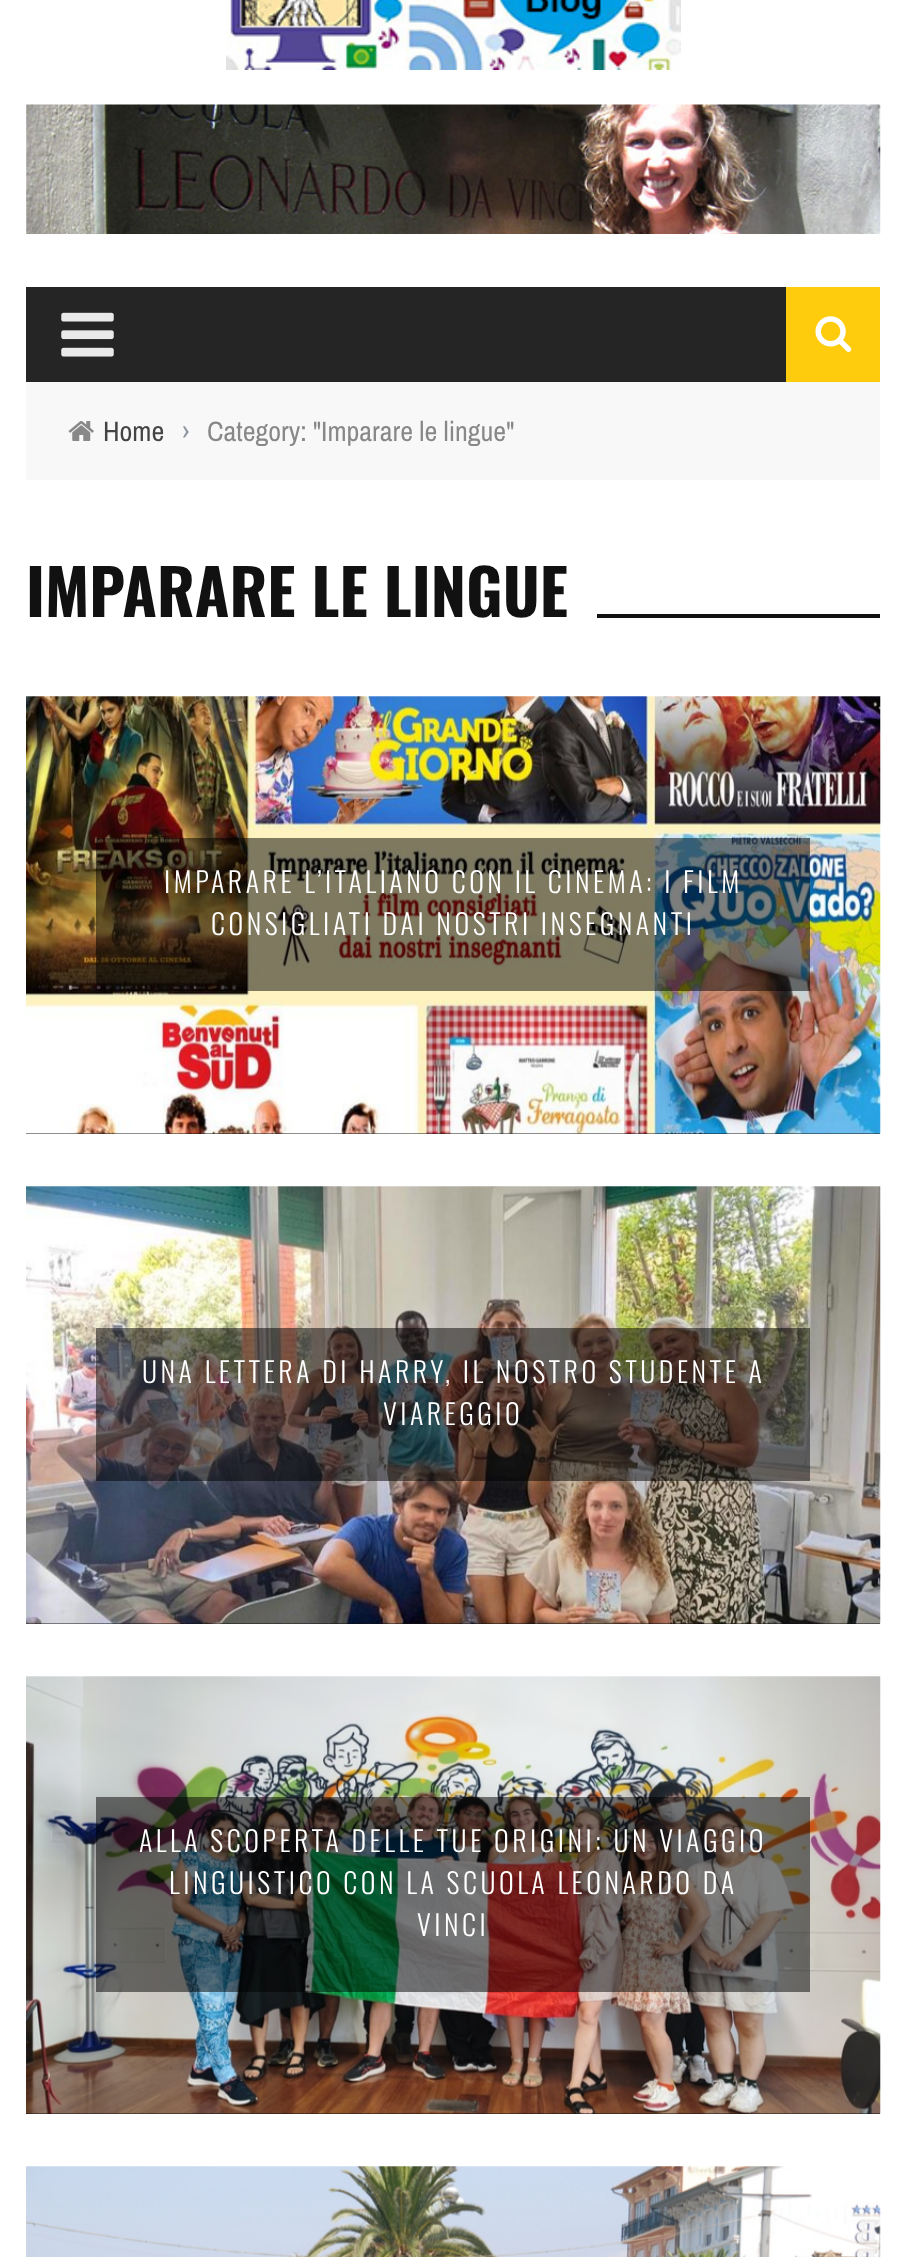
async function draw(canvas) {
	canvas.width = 905;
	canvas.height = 2257;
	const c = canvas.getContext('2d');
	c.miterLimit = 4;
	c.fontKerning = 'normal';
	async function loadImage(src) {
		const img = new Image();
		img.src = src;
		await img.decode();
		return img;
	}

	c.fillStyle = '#fff';
	c.fillRect(0, 0, 905, 2257);
	c.drawImage(await loadImage('img1.png'), 226, 0, 455, 70);
	c.drawImage(await loadImage('img2.png'), 26, 104, 855, 130);
	c.fillStyle = '#252525';
	c.fillRect(26, 287, 760, 95);
	c.drawImage(await loadImage('img3.png'), 61, 312, 53, 45);
	c.fillStyle = '#ffcc0d';
	c.fillRect(786, 287, 94, 95);
	c.drawImage(await loadImage('img4.png'), 815, 316, 37, 36);
	c.fillStyle = '#f8f8f8';
	c.fillRect(26, 382, 854, 98);
	c.drawImage(await loadImage('img5.png'), 68, 421, 26, 20);
	c.font = '28px Archivo Narrow';
	c.fillStyle = '#444';
	c.fillText('Home', 103, 441);
	c.fillStyle = '#8d97a1';
	c.fillText('›', 182, 441);
	c.fillStyle = '#888';
	c.fillText('Category: "Imparare le lingue"', 207, 441);
	c.font = 'bold 63px Oswald';
	c.fillStyle = '#111';
	c.fillText('IMPARARE LE LINGUE', 26, 617);
	c.fillRect(597, 614, 283, 4);
	c.fillRect(26, 1133, 854, 1);
	c.drawImage(await loadImage('img6.png'), 26, 696, 855, 438);
	c.fillStyle = '#00000080';
	c.fillRect(96, 838, 714, 153);
	c.letterSpacing = '3.5px';
	c.font = '300 28px Oswald';
	c.fillStyle = '#fff';
	c.fillText('IMPARARE L’ITALIANO CON IL CINEMA: I FILM', 164, 893);
	c.fillText('CONSIGLIATI DAI NOSTRI INSEGNANTI', 211, 935);
	c.fillStyle = '#111';
	c.fillRect(26, 1623, 854, 1);
	c.drawImage(await loadImage('img7.png'), 26, 1186, 855, 438);
	c.fillStyle = '#00000080';
	c.fillRect(96, 1328, 714, 153);
	c.fillStyle = '#fff';
	c.fillText('UNA LETTERA DI HARRY, IL NOSTRO STUDENTE A', 142, 1383);
	c.fillText('VIAREGGIO', 383, 1425);
	c.fillStyle = '#111';
	c.fillRect(26, 2113, 854, 1);
	c.drawImage(await loadImage('img8.png'), 26, 1676, 855, 438);
	c.fillStyle = '#00000080';
	c.fillRect(96, 1797, 714, 195);
	c.fillStyle = '#fff';
	for (const [text, x, y] of [
		['ALLA SCOPERTA DELLE TUE ORIGINI: UN VIAGGIO', 139, 1852],
		['LINGUISTICO CON LA SCUOLA LEONARDO DA', 169, 1894],
		['VINCI', 417, 1936],
	]) {
		c.fillText(text, x, y);
	}
	c.drawImage(await loadImage('img9.png'), 26, 2166, 855, 91);
}

draw(document.querySelector('canvas'));
